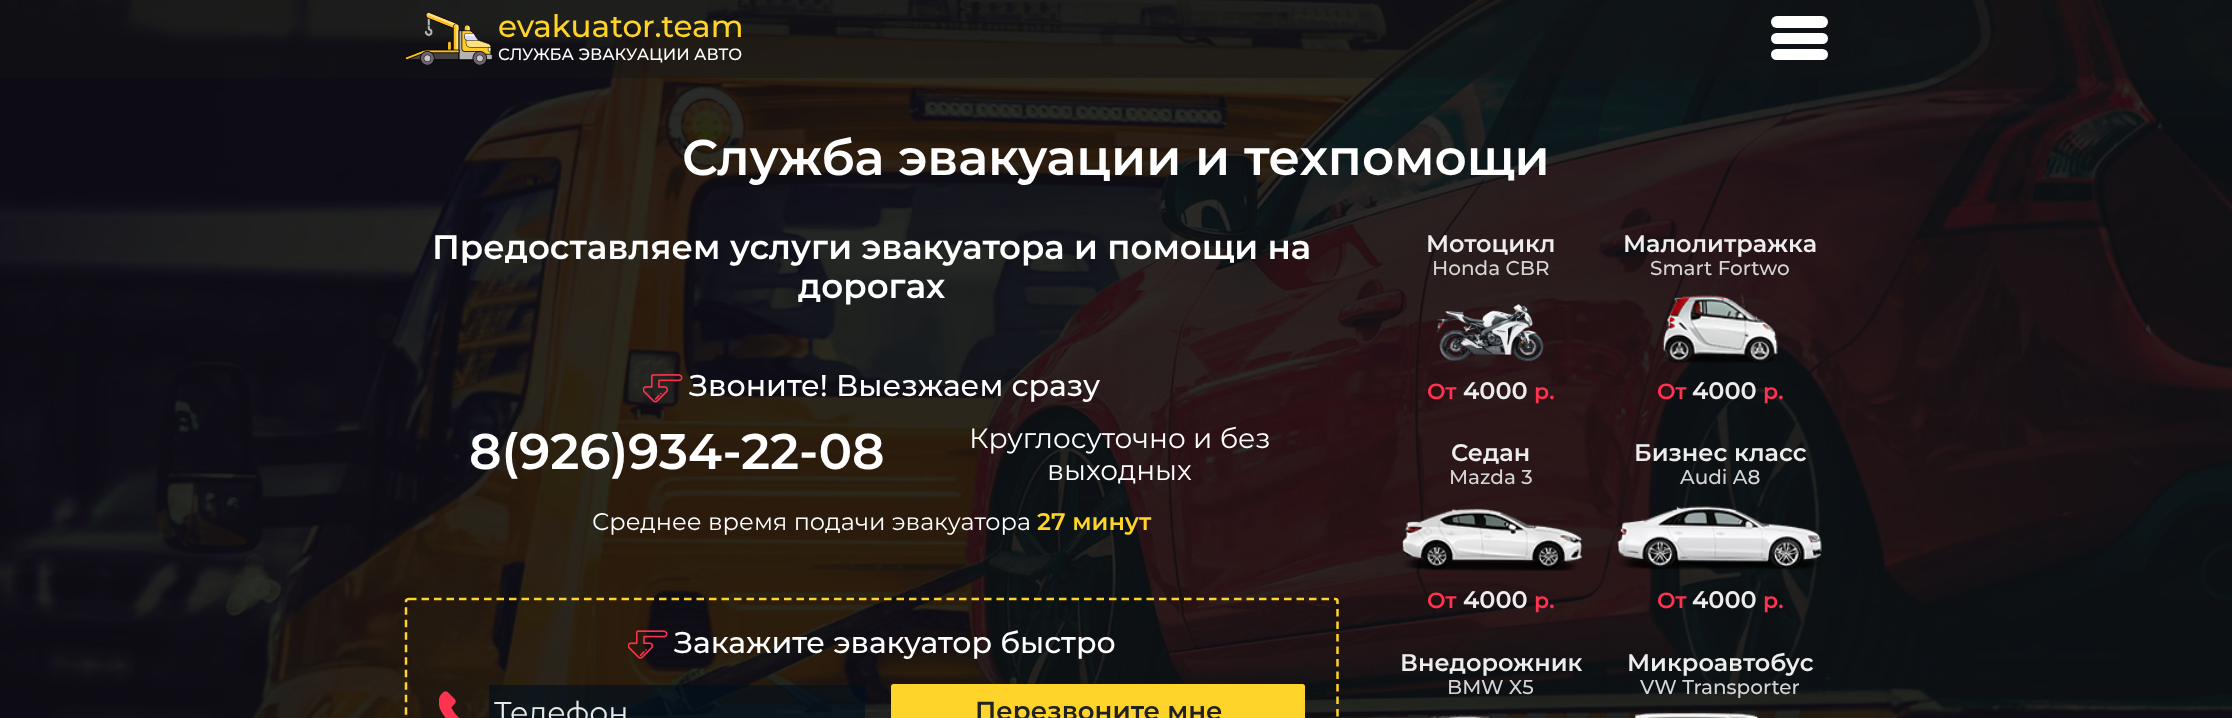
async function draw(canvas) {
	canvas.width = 2232;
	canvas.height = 718;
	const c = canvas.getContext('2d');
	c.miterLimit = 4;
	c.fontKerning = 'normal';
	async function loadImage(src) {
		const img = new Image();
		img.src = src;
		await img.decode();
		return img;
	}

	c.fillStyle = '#fff';
	c.fillRect(0, 0, 2232, 718);
	c.drawImage(await loadImage('img1.png'), 0, 0, 2232, 718);
	c.fillStyle = '#14141473';
	c.fillRect(0, 0, 2232, 78);
	c.drawImage(await loadImage('img2.png'), 405, 13, 88, 52);
	c.font = '500 31px Montserrat';
	c.fillStyle = '#ffd42a';
	c.fillText('evakuator.team', 498, 37);
	c.font = '500 16.4px Montserrat';
	c.fillStyle = '#fff';
	c.fillText('СЛУЖБА ЭВАКУАЦИИ АВТО', 498, 60);
	c.beginPath();
	c.roundRect(1771, 16, 57, 12, 6);
	c.fill();
	c.beginPath();
	c.roundRect(1771, 33, 57, 11, 5.5);
	c.fill();
	c.beginPath();
	c.roundRect(1771, 49, 57, 11, 5.5);
	c.fill();
	c.font = '600 50px Montserrat';
	c.fillText('Служба эвакуации и техпомощи', 682, 175);
	c.font = '600 34px Montserrat';
	c.fillText('Предоставляем услуги эвакуатора и помощи на', 432, 259);
	c.fillText('дорогах', 798, 298);
	c.drawImage(await loadImage('img3.png'), 643, 374, 40, 29);
	c.font = '500 30px Montserrat';
	c.fillText('Звоните! Выезжаем сразу', 689, 396);
	c.font = '600 50px Montserrat';
	c.fillText('8(926)934-22-08', 469, 469);
	c.font = '28px Montserrat';
	c.fillText('Круглосуточно и без', 969, 448);
	c.fillText('выходных', 1047, 480);
	c.font = '24px Montserrat';
	c.fillText('Среднее время подачи эвакуатора', 592, 530);
	c.font = '600 24px Montserrat';
	c.fillStyle = '#ffd42a';
	c.fillText('27 минут', 1037, 530);
	c.beginPath();
	c.moveTo(409, 599);
	c.lineTo(1335, 599);
	c.bezierCurveTo(1336.5, 599, 1337.5, 600, 1337.5, 601);
	c.lineTo(1337.5, 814);
	c.bezierCurveTo(1337.5, 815, 1336.5, 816, 1335, 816);
	c.lineTo(409, 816);
	c.bezierCurveTo(407.5, 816, 406, 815, 406, 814);
	c.lineTo(406, 601);
	c.bezierCurveTo(406, 600, 407.5, 599, 409, 599);
	c.closePath();
	c.strokeStyle = '#ffd42a';
	c.lineWidth = 2.5;
	c.setLineDash([7.5, 5]);
	c.stroke();
	c.drawImage(await loadImage('img4.png'), 628, 630, 40, 29);
	c.font = '500 30px Montserrat';
	c.fillStyle = '#fff';
	c.fillText('Закажите эвакуатор быстро', 674, 653);
	c.drawImage(await loadImage('img5.png'), 439, 691, 21, 27);
	c.fillStyle = '#000f1da6';
	c.fillRect(489, 685, 376, 33);
	c.font = '30px Montserrat';
	c.fillStyle = '#e7e8e8';
	c.fillText('Телефон', 494, 723);
	c.fillStyle = '#ffd42a';
	c.beginPath();
	c.roundRect(891, 684, 414, 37, 2.5);
	c.fill();
	c.font = '600 26px Montserrat';
	c.fillStyle = '#212121';
	c.fillText('Перезвоните мне', 975, 720);
	c.font = '600 24px Montserrat';
	c.fillStyle = '#ededed';
	c.fillText('Мотоцикл', 1426, 252);
	c.font = '500 20px Montserrat';
	c.fillStyle = '#d4d4d4';
	c.fillText('Honda CBR', 1432, 275);
	c.drawImage(await loadImage('img6.png'), 1437, 303, 107, 59);
	c.font = '600 22px Montserrat';
	c.fillStyle = '#ff3250';
	c.fillText('От', 1427, 399);
	c.font = '600 24px Montserrat';
	c.fillStyle = '#ededed';
	c.fillText('4000', 1463, 399);
	c.font = '600 22px Montserrat';
	c.fillStyle = '#ff3250';
	c.fillText('р.', 1534, 399);
	c.font = '600 24px Montserrat';
	c.fillStyle = '#ededed';
	c.fillText('Малолитражка', 1623, 252);
	c.font = '500 20px Montserrat';
	c.fillStyle = '#d4d4d4';
	c.fillText('Smart Fortwo', 1650, 275);
	c.drawImage(await loadImage('img7.png'), 1662, 294, 116, 70);
	c.font = '600 22px Montserrat';
	c.fillStyle = '#ff3250';
	c.fillText('От', 1657, 399);
	c.font = '600 24px Montserrat';
	c.fillStyle = '#ededed';
	c.fillText('4000', 1692, 399);
	c.font = '600 22px Montserrat';
	c.fillStyle = '#ff3250';
	c.fillText('р.', 1763, 399);
	c.font = '600 24px Montserrat';
	c.fillStyle = '#ededed';
	c.fillText('Седан', 1451, 461);
	c.font = '500 20px Montserrat';
	c.fillStyle = '#d4d4d4';
	c.fillText('Mazda 3', 1449, 484);
	c.drawImage(await loadImage('img8.png'), 1401, 508, 182, 63);
	c.font = '600 22px Montserrat';
	c.fillStyle = '#ff3250';
	c.fillText('От', 1427, 608);
	c.font = '600 24px Montserrat';
	c.fillStyle = '#ededed';
	c.fillText('4000', 1463, 608);
	c.font = '600 22px Montserrat';
	c.fillStyle = '#ff3250';
	c.fillText('р.', 1534, 608);
	c.font = '600 24px Montserrat';
	c.fillStyle = '#ededed';
	c.fillText('Бизнес класс', 1634, 461);
	c.font = '500 20px Montserrat';
	c.fillStyle = '#d4d4d4';
	c.fillText('Audi A8', 1680, 484);
	c.drawImage(await loadImage('img9.png'), 1617, 506, 205, 64);
	c.font = '600 22px Montserrat';
	c.fillStyle = '#ff3250';
	c.fillText('От', 1657, 608);
	c.font = '600 24px Montserrat';
	c.fillStyle = '#ededed';
	c.fillText('4000', 1692, 608);
	c.font = '600 22px Montserrat';
	c.fillStyle = '#ff3250';
	c.fillText('р.', 1763, 608);
	c.font = '600 24px Montserrat';
	c.fillStyle = '#ededed';
	c.fillText('Внедорожник', 1400, 671);
	c.font = '500 20px Montserrat';
	c.fillStyle = '#d4d4d4';
	c.fillText('BMW X5', 1447, 694);
	c.drawImage(await loadImage('img10.png'), 1430, 715, 65, 3);
	c.font = '600 24px Montserrat';
	c.fillStyle = '#ededed';
	c.fillText('Микроавтобус', 1627, 671);
	c.font = '500 20px Montserrat';
	c.fillStyle = '#d4d4d4';
	c.fillText('VW Transporter', 1640, 694);
	c.drawImage(await loadImage('img11.png'), 1634, 713, 125, 5);
}

draw(document.querySelector('canvas'));
